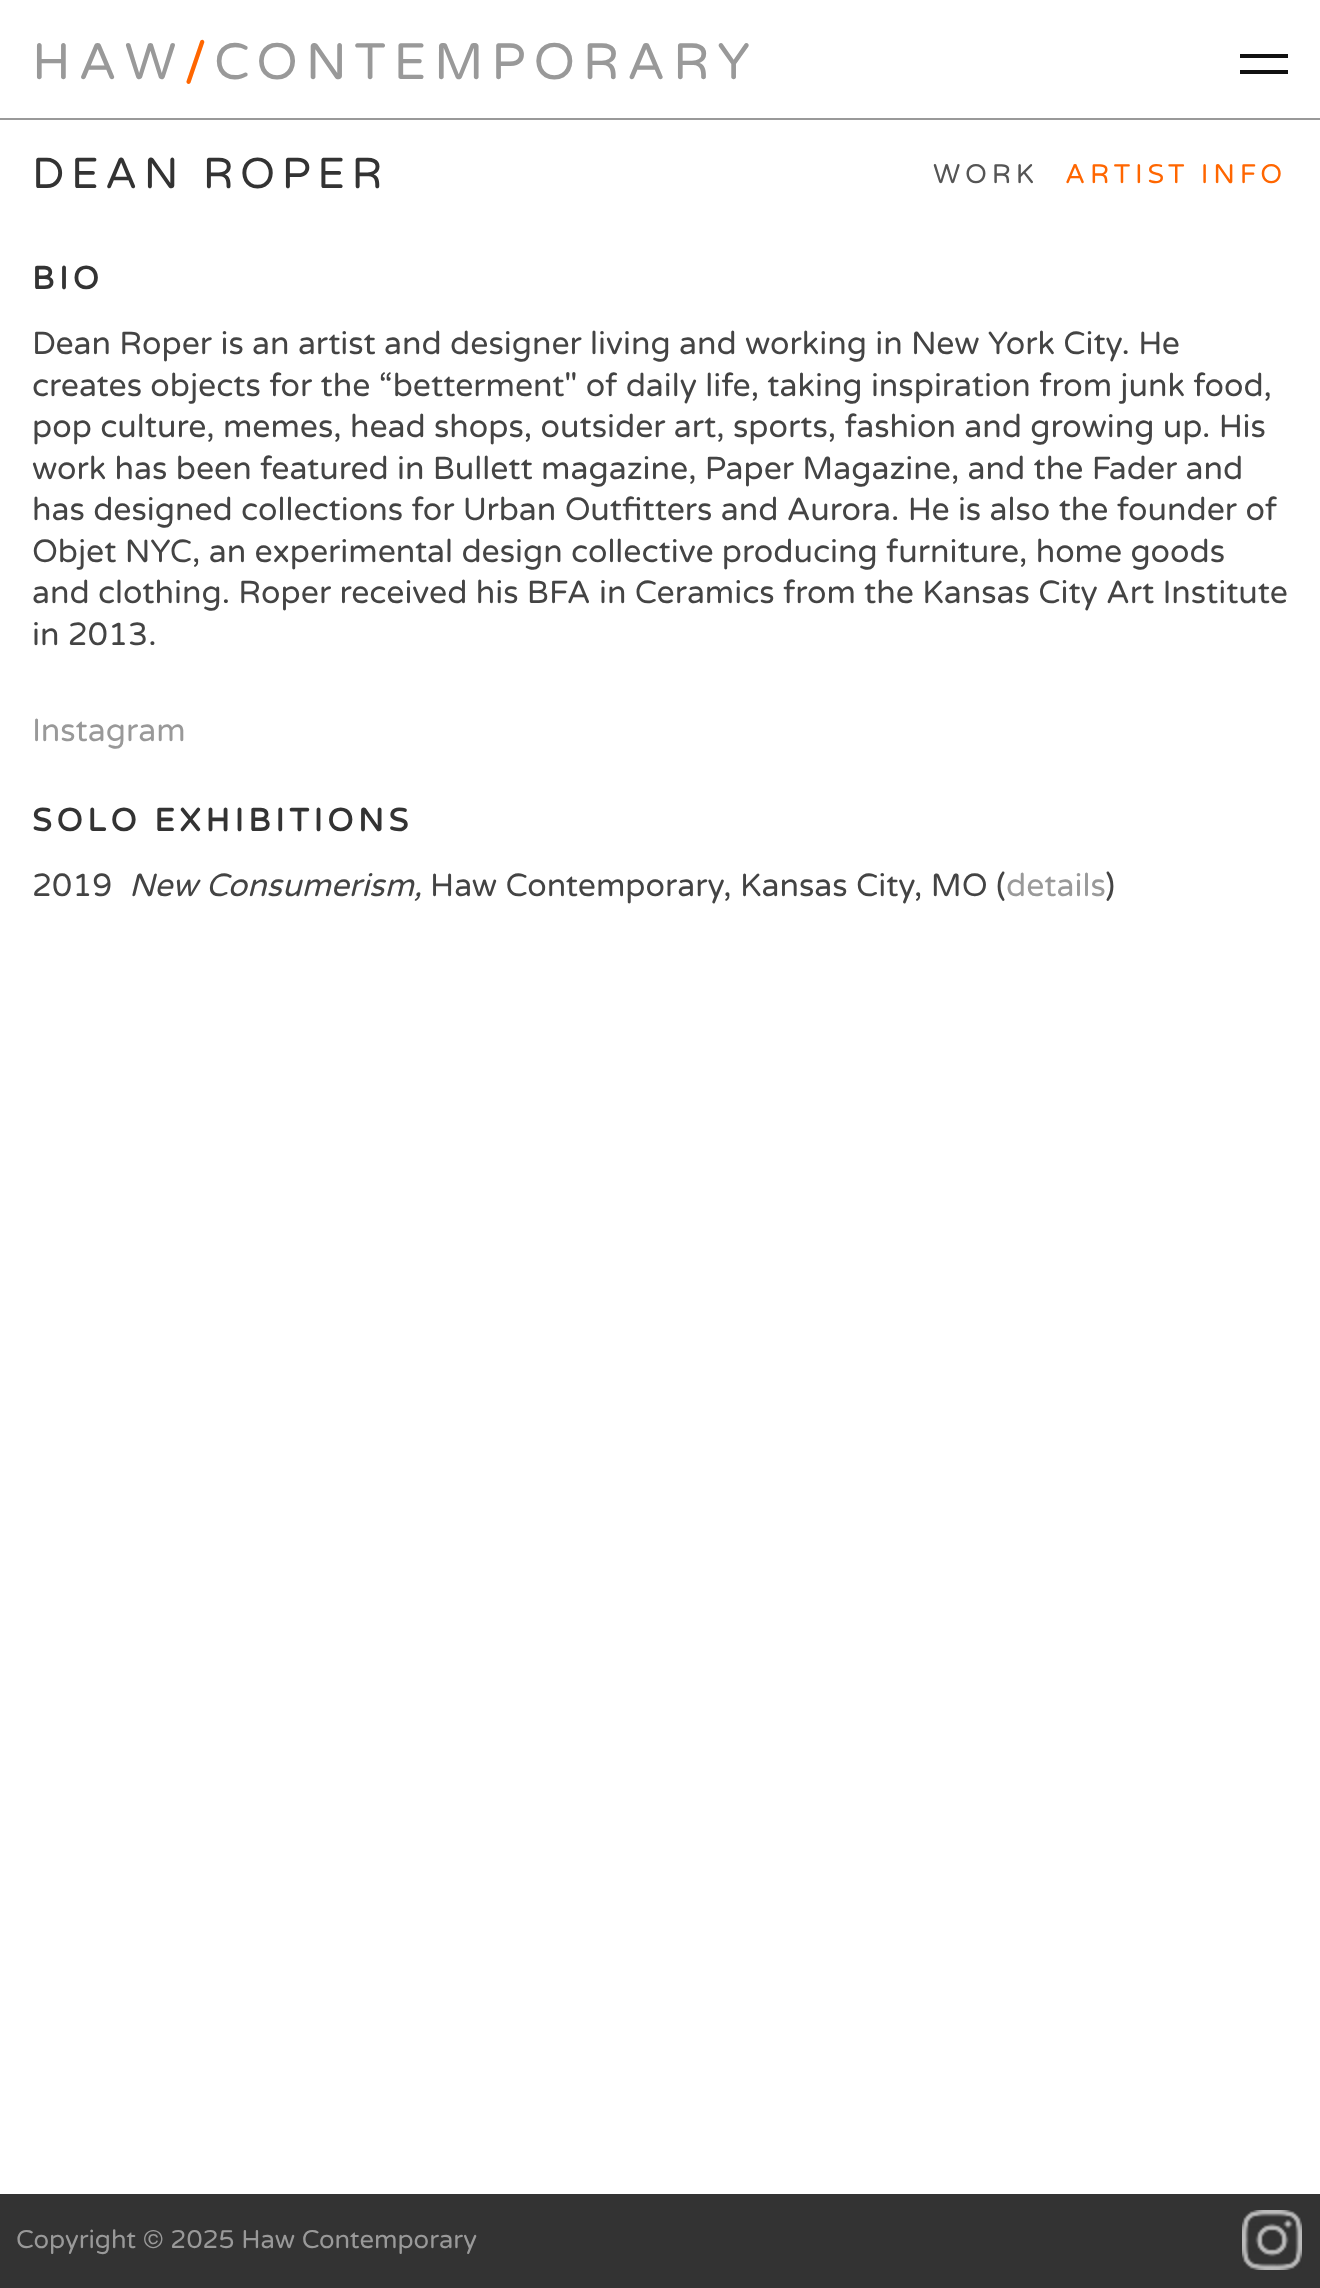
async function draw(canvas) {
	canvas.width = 1320;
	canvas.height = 2288;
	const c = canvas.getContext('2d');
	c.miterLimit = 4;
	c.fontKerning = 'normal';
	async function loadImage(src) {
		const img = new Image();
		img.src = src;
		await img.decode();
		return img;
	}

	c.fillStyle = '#fff';
	c.fillRect(0, 0, 1320, 2288);
	c.fillStyle = '#999';
	c.fillRect(0, 118, 1320, 2);
	c.letterSpacing = '7.75px';
	c.font = '51.25px Varela Round';
	c.fillText('HAW', 32, 79);
	c.fillStyle = '#f60';
	c.fillText('/', 184, 79);
	c.fillStyle = '#999';
	c.fillText('CONTEMPORARY', 214, 79);
	c.fillStyle = '#111';
	c.fillRect(1240, 54, 48, 4);
	c.fillRect(1240, 70, 48, 4);
	c.letterSpacing = '6.5px';
	c.font = '43.25px Varela Round';
	c.fillStyle = '#333';
	c.fillText('DEAN ROPER', 32, 188);
	c.letterSpacing = '4.75px';
	c.font = '27px Varela Round';
	c.fillStyle = '#555';
	c.fillText('WORK', 933, 183);
	c.fillStyle = '#f60';
	c.fillText('ARTIST INFO', 1065, 183);
	c.font = 'bold 32px Varela Round';
	c.fillStyle = '#333';
	c.fillText('BIO', 32, 289);
	c.letterSpacing = '0px';
	c.font = '32px Varela Round';
	c.fillStyle = '#444';
	for (const [text, x, y] of [
		['Dean Roper is an artist and designer living and working in New York City. He', 32, 354],
		['creates objects for the “betterment" of daily life, taking inspiration from junk food,', 32, 396],
		['pop culture, memes, head shops, outsider art, sports, fashion and growing up. His', 32, 437],
		['work has been featured in Bullett magazine, Paper Magazine, and the Fader and', 32, 479],
		['has designed collections for Urban Outfitters and Aurora. He is also the founder of', 32, 520],
		['Objet NYC, an experimental design collective producing furniture, home goods', 32, 562],
		['and clothing. Roper received his BFA in Ceramics from the Kansas City Art Institute', 32, 603],
		['in 2013.', 32, 645],
	]) {
		c.fillText(text, x, y);
	}
	c.fillStyle = '#999';
	c.fillText('Instagram', 32, 741);
	c.letterSpacing = '4.75px';
	c.font = 'bold 32px Varela Round';
	c.fillStyle = '#333';
	c.fillText('SOLO EXHIBITIONS', 32, 831);
	c.letterSpacing = '0px';
	c.font = '32px Varela Round';
	c.fillStyle = '#444';
	c.fillText('2019', 32, 896);
	c.font = 'italic 32px Varela Round';
	c.fillText('New Consumerism,', 129, 896);
	c.font = '32px Varela Round';
	c.fillText('Haw Contemporary, Kansas City, MO (', 430, 896);
	c.fillStyle = '#999';
	c.fillText('details', 1006, 896);
	c.fillStyle = '#444';
	c.fillText(')', 1105, 896);
	c.fillStyle = '#333';
	c.fillRect(0, 2194, 1320, 94);
	c.font = '25.6px Varela Round';
	c.fillStyle = '#999';
	c.fillText('Copyright © 2025 Haw Contemporary', 16, 2248);
	c.drawImage(await loadImage('img1.png'), 1242, 2210, 60, 60);
}

draw(document.querySelector('canvas'));
